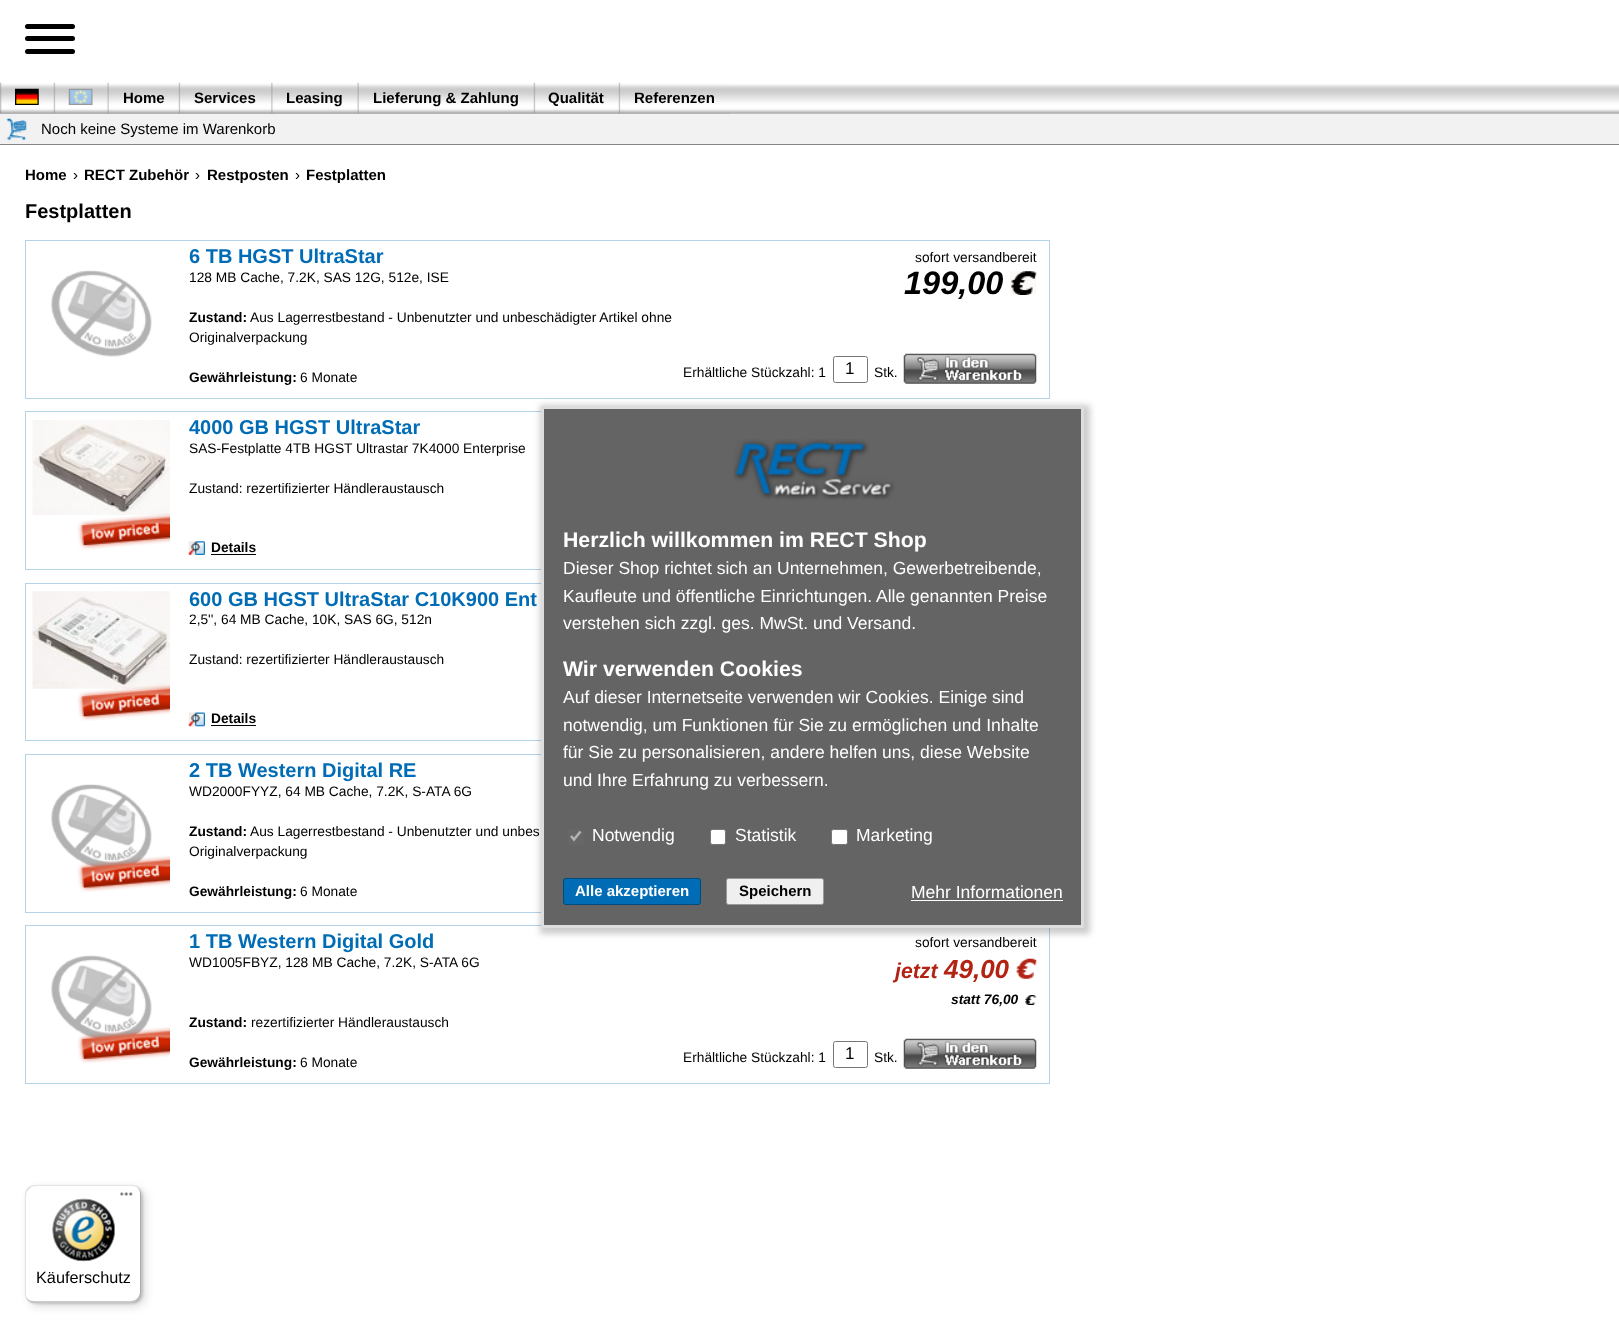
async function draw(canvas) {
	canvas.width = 1619;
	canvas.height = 1332;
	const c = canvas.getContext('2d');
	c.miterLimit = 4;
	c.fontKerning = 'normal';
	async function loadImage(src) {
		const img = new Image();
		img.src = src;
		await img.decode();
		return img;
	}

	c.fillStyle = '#fff';
	c.fillRect(0, 0, 1619, 1332);
	c.fillStyle = '#000';
	c.beginPath();
	c.roundRect(25, 49, 50, 5, 2.5);
	c.fill();
	c.beginPath();
	c.roundRect(25, 24, 50, 5, 2.5);
	c.fill();
	c.beginPath();
	c.roundRect(25, 36, 50, 5, 2.5);
	c.fill();
	c.drawImage(await loadImage('img1.png'), 0, 84, 1619, 30);
	c.drawImage(await loadImage('img2.png'), 0, 82, 54, 32);
	c.drawImage(await loadImage('img3.png'), 15, 88, 24, 17);
	c.drawImage(await loadImage('img4.png'), 53, 82, 55, 32);
	c.drawImage(await loadImage('img5.png'), 68, 88, 25, 17);
	c.drawImage(await loadImage('img6.png'), 107, 82, 72, 32);
	c.font = 'bold 15px Liberation Sans';
	c.fillText('Home', 123, 103);
	c.drawImage(await loadImage('img7.png'), 178, 82, 93, 32);
	c.fillText('Services', 194, 103);
	c.drawImage(await loadImage('img8.png'), 271, 82, 87, 32);
	c.fillText('Leasing', 286, 103);
	c.drawImage(await loadImage('img9.png'), 357, 82, 177, 32);
	c.fillText('Lieferung & Zahlung', 373, 103);
	c.drawImage(await loadImage('img10.png'), 533, 82, 86, 32);
	c.fillText('Qualität', 548, 103);
	c.drawImage(await loadImage('img11.png'), 618, 82, 112, 32);
	c.fillText('Referenzen', 634, 103);
	c.fillStyle = '#f2f2f2';
	c.fillRect(0, 114, 1619, 30);
	c.fillStyle = '#858585';
	c.fillRect(0, 144, 1619, 1);
	c.drawImage(await loadImage('img12.png'), 6, 118, 21, 23);
	c.font = '15px Liberation Sans';
	c.fillStyle = '#000';
	c.fillText('Noch keine Systeme im Warenkorb', 41, 134);
	c.font = 'bold 15px Liberation Sans';
	c.fillText('Home', 25, 180);
	c.font = '15px Liberation Sans';
	c.fillText('›', 73, 180);
	c.font = 'bold 15px Liberation Sans';
	c.fillText('RECT Zubehör', 84, 180);
	c.font = '15px Liberation Sans';
	c.fillText('›', 195, 180);
	c.font = 'bold 15px Liberation Sans';
	c.fillText('Restposten', 207, 180);
	c.font = '15px Liberation Sans';
	c.fillText('›', 295, 180);
	c.font = 'bold 15px Liberation Sans';
	c.fillText('Festplatten', 306, 180);
	c.font = 'bold 20px Liberation Sans';
	c.fillText('Festplatten', 25, 218);
	c.strokeStyle = '#b4d3e8';
	c.strokeRect(25.5, 240.5, 1024, 158);
	c.drawImage(await loadImage('img13.png'), 51, 270, 101, 87);
	c.fillStyle = '#006cb5';
	c.fillText('6 TB HGST UltraStar', 189, 263);
	c.font = '13.75px Liberation Sans';
	c.fillStyle = '#000';
	c.fillText('128 MB Cache, 7.2K, SAS 12G, 512e, ISE', 189, 282);
	c.font = 'bold 13.75px Liberation Sans';
	c.fillText('Zustand:', 189, 322);
	c.font = '13.75px Liberation Sans';
	c.fillText('Aus Lagerrestbestand - Unbenutzter und unbeschädigter Artikel ohne', 250, 322);
	c.fillText('Originalverpackung', 189, 342);
	c.font = 'bold 13.75px Liberation Sans';
	c.fillText('Gewährleistung:', 189, 382);
	c.font = '13.75px Liberation Sans';
	c.fillText('6 Monate', 300, 382);
	c.fillText('sofort versandbereit', 915, 262);
	c.font = 'italic bold 32.5px Liberation Sans';
	c.fillText('199,00', 904, 294);
	c.drawImage(await loadImage('img14.png'), 1010, 271, 27, 24);
	c.font = '13.75px Liberation Sans';
	c.fillText('Erhältliche Stückzahl: 1', 683, 377);
	c.beginPath();
	c.roundRect(833.5, 356.5, 34, 26, 2);
	c.strokeStyle = '#767676';
	c.stroke();
	c.font = '17px Liberation Sans';
	c.fillText('1', 845, 374);
	c.font = '13.75px Liberation Sans';
	c.fillText('Stk.', 874, 377);
	c.drawImage(await loadImage('img15.png'), 903, 353, 134, 31);
	c.strokeStyle = '#b4d3e8';
	c.strokeRect(25.5, 411.5, 1024, 158);
	c.drawImage(await loadImage('img16.png'), 32, 420, 138, 95);
	c.font = 'bold 20px Liberation Sans';
	c.fillStyle = '#006cb5';
	c.fillText('4000 GB HGST UltraStar', 189, 434);
	c.font = '13.75px Liberation Sans';
	c.fillStyle = '#000';
	c.fillText('SAS-Festplatte 4TB HGST Ultrastar 7K4000 Enterprise', 189, 453);
	c.fillText('Zustand: rezertifizierter Händleraustausch', 189, 493);
	c.drawImage(await loadImage('img17.png'), 188, 541, 17, 14);
	c.font = 'bold 13.75px Liberation Sans';
	c.fillText('Details', 211, 552);
	c.fillRect(211, 554, 45, 1);
	c.drawImage(await loadImage('img18.png'), 77, 513, 93, 37);
	c.strokeRect(25.5, 583.5, 1024, 157);
	c.drawImage(await loadImage('img19.png'), 32, 591, 138, 98);
	c.font = 'bold 20px Liberation Sans';
	c.fillStyle = '#006cb5';
	c.fillText('600 GB HGST UltraStar C10K900 Ent', 189, 606);
	c.font = '13.75px Liberation Sans';
	c.fillStyle = '#000';
	c.fillText('2,5\'\', 64 MB Cache, 10K, SAS 6G, 512n', 189, 624);
	c.fillText('Zustand: rezertifizierter Händleraustausch', 189, 664);
	c.drawImage(await loadImage('img20.png'), 188, 712, 17, 15);
	c.font = 'bold 13.75px Liberation Sans';
	c.fillText('Details', 211, 723);
	c.fillRect(211, 725, 45, 1);
	c.drawImage(await loadImage('img21.png'), 77, 684, 93, 37);
	c.strokeRect(25.5, 754.5, 1024, 158);
	c.drawImage(await loadImage('img22.png'), 51, 784, 101, 87);
	c.font = 'bold 20px Liberation Sans';
	c.fillStyle = '#006cb5';
	c.fillText('2 TB Western Digital RE', 189, 777);
	c.font = '13.75px Liberation Sans';
	c.fillStyle = '#000';
	c.fillText('WD2000FYYZ, 64 MB Cache, 7.2K, S-ATA 6G', 189, 796);
	c.font = 'bold 13.75px Liberation Sans';
	c.fillText('Zustand:', 189, 836);
	c.font = '13.75px Liberation Sans';
	c.fillText('Aus Lagerrestbestand - Unbenutzter und unbes', 250, 836);
	c.fillText('Originalverpackung', 189, 856);
	c.font = 'bold 13.75px Liberation Sans';
	c.fillText('Gewährleistung:', 189, 896);
	c.font = '13.75px Liberation Sans';
	c.fillText('6 Monate', 300, 896);
	c.drawImage(await loadImage('img23.png'), 77, 855, 93, 37);
	c.strokeRect(25.5, 925.5, 1024, 158);
	c.drawImage(await loadImage('img13.png'), 51, 955, 101, 87);
	c.font = 'bold 20px Liberation Sans';
	c.fillStyle = '#006cb5';
	c.fillText('1 TB Western Digital Gold', 189, 948);
	c.font = '13.75px Liberation Sans';
	c.fillStyle = '#000';
	c.fillText('WD1005FBYZ, 128 MB Cache, 7.2K, S-ATA 6G', 189, 967);
	c.font = 'bold 13.75px Liberation Sans';
	c.fillText('Zustand:', 189, 1027);
	c.font = '13.75px Liberation Sans';
	c.fillText('rezertifizierter Händleraustausch', 251, 1027);
	c.font = 'bold 13.75px Liberation Sans';
	c.fillText('Gewährleistung:', 189, 1067);
	c.font = '13.75px Liberation Sans';
	c.fillText('6 Monate', 300, 1067);
	c.fillText('sofort versandbereit', 915, 947);
	c.font = 'italic bold 21.25px Liberation Sans';
	c.fillStyle = '#b22314';
	c.fillText('jetzt', 895, 978);
	c.font = 'italic bold 26px Liberation Sans';
	c.fillText('49,00', 944, 978);
	c.drawImage(await loadImage('img24.png'), 1016, 958, 21, 21);
	c.font = 'italic bold 13.75px Liberation Sans';
	c.fillStyle = '#000';
	c.fillText('statt 76,00', 951, 1004);
	c.drawImage(await loadImage('img25.png'), 1025, 995, 12, 10);
	c.font = '13.75px Liberation Sans';
	c.fillText('Erhältliche Stückzahl: 1', 683, 1062);
	c.beginPath();
	c.roundRect(833.5, 1041.5, 34, 26, 2);
	c.strokeStyle = '#767676';
	c.stroke();
	c.font = '17px Liberation Sans';
	c.fillText('1', 845, 1059);
	c.font = '13.75px Liberation Sans';
	c.fillText('Stk.', 874, 1062);
	c.drawImage(await loadImage('img15.png'), 903, 1038, 134, 31);
	c.drawImage(await loadImage('img26.png'), 77, 1027, 93, 36);
	c.fillStyle = '#00000033';
	c.filter = 'blur(3px)';
	c.beginPath();
	c.rect(540, 405, 550, 529);
	c.fill();
	c.filter = 'none';
	c.fillStyle = '#646464';
	c.beginPath();
	c.rect(542.5, 407.5, 540, 519);
	c.fill();
	c.strokeStyle = '#ddd';
	c.lineWidth = 3;
	c.stroke();
	c.drawImage(await loadImage('img27.png'), 733, 439, 162, 61);
	c.font = 'bold 21.25px Liberation Sans';
	c.fillStyle = '#fff';
	c.fillText('Herzlich willkommen im RECT Shop', 563, 547);
	c.font = '17.5px Liberation Sans';
	for (const [text, x, y] of [
		['Dieser Shop richtet sich an Unternehmen, Gewerbetreibende,', 563, 574],
		['Kaufleute und öffentliche Einrichtungen. Alle genannten Preise', 563, 602],
		['verstehen sich zzgl. ges. MwSt. und Versand.', 563, 629],
	]) {
		c.fillText(text, x, y);
	}
	c.font = 'bold 21.25px Liberation Sans';
	c.fillText('Wir verwenden Cookies', 563, 676);
	c.font = '17.5px Liberation Sans';
	for (const [text, x, y] of [
		['Auf dieser Internetseite verwenden wir Cookies. Einige sind', 563, 703],
		['notwendig, um Funktionen für Sie zu ermöglichen und Inhalte', 563, 731],
		['für Sie zu personalisieren, andere helfen uns, diese Website', 563, 758],
		['und Ihre Erfahrung zu verbessern.', 563, 786],
	]) {
		c.fillText(text, x, y);
	}
	c.fillStyle = '#676767';
	c.beginPath();
	c.roundRect(568, 829, 16, 16, 2.5);
	c.fill();
	c.beginPath();
	c.moveTo(571, 836);
	c.lineTo(574, 839.5);
	c.lineTo(580.5, 831.5);
	c.strokeStyle = '#b2b2b2';
	c.lineWidth = 2.6;
	c.stroke();
	c.fillStyle = '#fff';
	c.fillText('Notwendig', 592, 841);
	c.beginPath();
	c.roundRect(710.5, 829.5, 15, 15, 2);
	c.fill();
	c.strokeStyle = '#767676';
	c.lineWidth = 1;
	c.stroke();
	c.fillText('Statistik', 735, 841);
	c.beginPath();
	c.roundRect(831.5, 829.5, 16, 15, 2);
	c.fill();
	c.stroke();
	c.fillText('Marketing', 856, 841);
	c.fillStyle = '#006cb5';
	c.beginPath();
	c.roundRect(563.5, 878.5, 137, 26, 2);
	c.fill();
	c.strokeStyle = '#004b7e';
	c.stroke();
	c.font = 'bold 15px Liberation Sans';
	c.fillStyle = '#fff';
	c.fillText('Alle akzeptieren', 575, 896);
	c.fillStyle = '#efefef';
	c.beginPath();
	c.roundRect(726.5, 878.5, 97, 26, 2);
	c.fill();
	c.strokeStyle = '#999';
	c.stroke();
	c.fillStyle = '#000';
	c.fillText('Speichern', 739, 896);
	c.font = '17.5px Liberation Sans';
	c.fillStyle = '#fff';
	c.fillText('Mehr Informationen', 911, 898);
	c.fillRect(911, 900, 152, 1);
	c.fillStyle = '#00000026';
	c.filter = 'blur(5px)';
	c.beginPath();
	c.roundRect(29, 1189, 116, 117, 10);
	c.fill();
	c.filter = 'none';
	c.filter = 'blur(1px)';
	c.beginPath();
	c.roundRect(26, 1186, 117, 118, 10);
	c.fill();
	c.filter = 'none';
	c.fillStyle = '#fff';
	c.beginPath();
	c.roundRect(25, 1185, 116, 118, 10);
	c.fill();
	c.fillStyle = '#0000001a';
	c.beginPath();
	c.moveTo(36, 1186);
	c.lineTo(132, 1186);
	c.bezierCurveTo(135, 1186, 137, 1187, 139, 1188);
	c.bezierCurveTo(137, 1186, 134, 1185, 131, 1185);
	c.lineTo(35, 1185);
	c.bezierCurveTo(29, 1185, 25, 1189, 25, 1195);
	c.lineTo(25, 1293);
	c.bezierCurveTo(25, 1297, 27, 1300, 30, 1302);
	c.bezierCurveTo(28, 1300, 26, 1297, 26, 1294);
	c.lineTo(26, 1196);
	c.bezierCurveTo(26, 1191, 31, 1186, 36, 1186);
	c.closePath();
	c.fill();
	c.fillStyle = '#00000033';
	c.beginPath();
	c.moveTo(26, 1297);
	c.bezierCurveTo(28, 1301, 31, 1303, 35, 1303);
	c.lineTo(131, 1303);
	c.bezierCurveTo(137, 1303, 141, 1299, 141, 1293);
	c.lineTo(141, 1195);
	c.bezierCurveTo(141, 1193, 140, 1190, 139, 1189);
	c.bezierCurveTo(140, 1190, 140, 1192, 140, 1194);
	c.lineTo(140, 1291);
	c.bezierCurveTo(140, 1297, 136, 1301, 130, 1301);
	c.lineTo(34, 1301);
	c.bezierCurveTo(31, 1301, 28, 1300, 26, 1297);
	c.closePath();
	c.fill();
	c.fillStyle = '#32323233';
	c.beginPath();
	c.moveTo(26, 1298);
	c.bezierCurveTo(28, 1301, 31, 1303, 35, 1303);
	c.lineTo(131, 1303);
	c.bezierCurveTo(137, 1303, 141, 1299, 141, 1293);
	c.lineTo(141, 1195);
	c.bezierCurveTo(141, 1192, 140, 1189, 137, 1187);
	c.bezierCurveTo(139, 1189, 140, 1192, 140, 1194);
	c.lineTo(140, 1292);
	c.bezierCurveTo(140, 1297, 136, 1302, 130, 1302);
	c.lineTo(34, 1302);
	c.bezierCurveTo(31, 1302, 28, 1300, 26, 1298);
	c.closePath();
	c.fill();
	c.drawImage(await loadImage('img28.png'), 120, 1192, 13, 4);
	c.fillStyle = '#ffffff4d';
	c.beginPath();
	c.moveTo(26, 1298);
	c.bezierCurveTo(28, 1301, 31, 1303, 35, 1303);
	c.lineTo(131, 1303);
	c.bezierCurveTo(137, 1303, 141, 1299, 141, 1293);
	c.lineTo(141, 1292);
	c.bezierCurveTo(141, 1297, 136, 1302, 131, 1302);
	c.lineTo(34, 1302);
	c.bezierCurveTo(31, 1302, 28, 1300, 26, 1298);
	c.closePath();
	c.fill();
	c.drawImage(await loadImage('img29.png'), 52, 1198, 63, 64);
	c.font = '16.25px Liberation Sans';
	c.fillStyle = '#000';
	c.fillText('Käuferschutz', 36, 1283);
}

draw(document.querySelector('canvas'));
